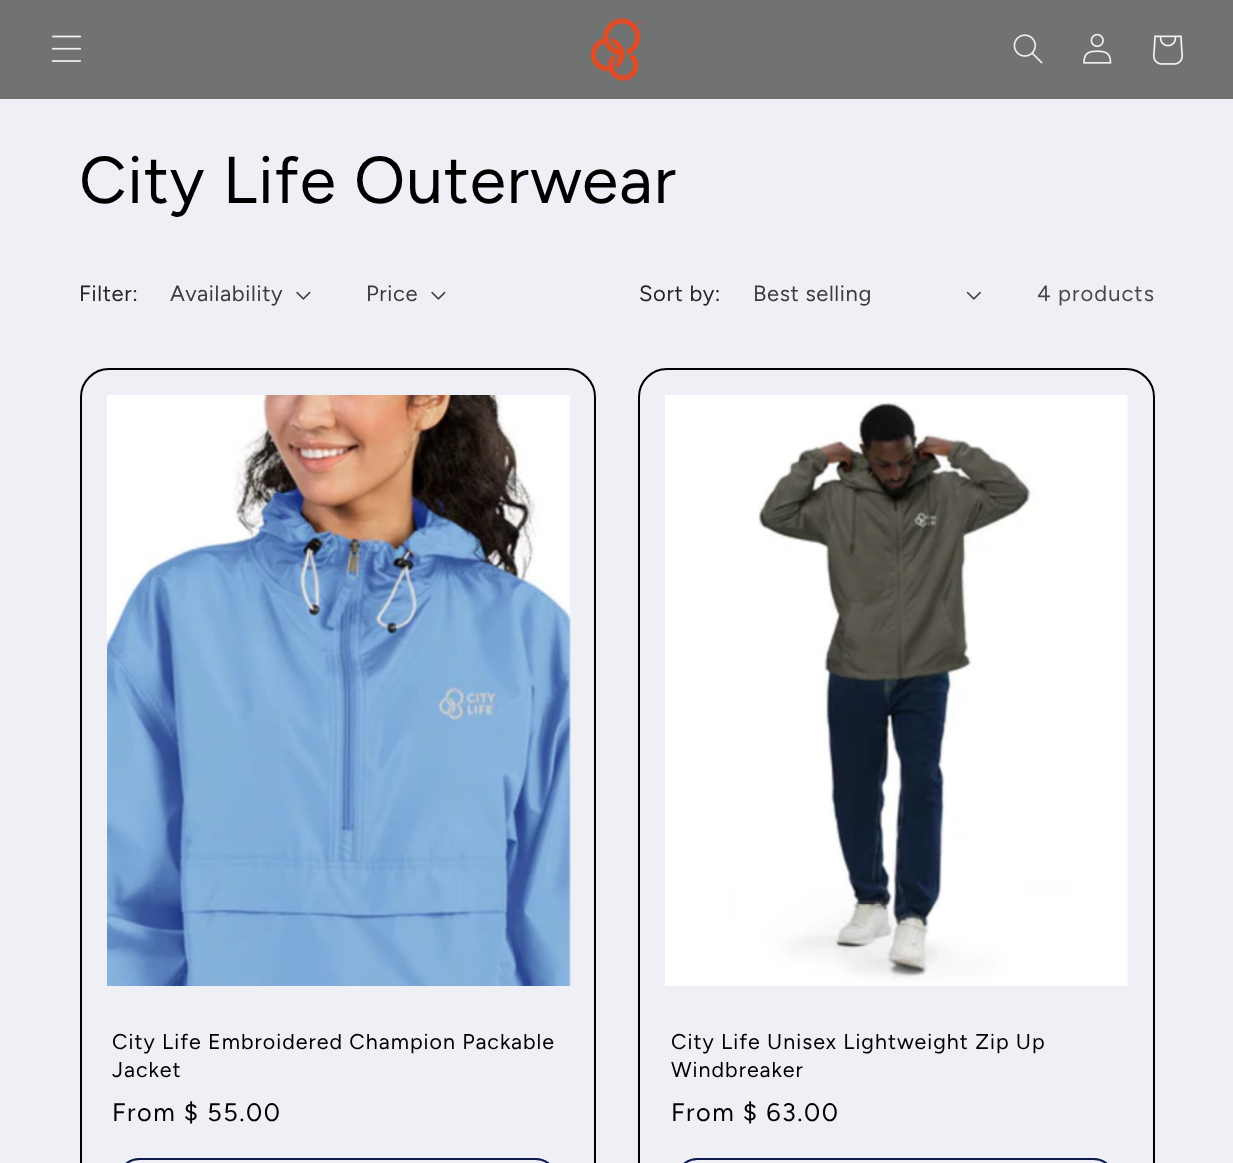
async function draw(canvas) {
	canvas.width = 1233;
	canvas.height = 1163;
	const c = canvas.getContext('2d');
	c.miterLimit = 4;
	c.fontKerning = 'normal';
	async function loadImage(src) {
		const img = new Image();
		img.src = src;
		await img.decode();
		return img;
	}

	c.fillStyle = '#eff0f5';
	c.fillRect(0, 0, 1233, 1163);
	c.fillStyle = '#707372';
	c.fillRect(0, 0, 1233, 99);
	c.drawImage(await loadImage('img1.png'), 51, 35, 31, 27);
	c.drawImage(await loadImage('img2.png'), 589, 17, 54, 65);
	c.drawImage(await loadImage('img3.png'), 1013, 34, 30, 30);
	c.drawImage(await loadImage('img4.png'), 1083, 33, 29, 31);
	c.drawImage(await loadImage('img5.png'), 1153, 35, 30, 30);
	c.letterSpacing = '1px';
	c.font = '66px Figtree';
	c.fillStyle = '#000';
	c.fillText('City Life Outerwear', 79, 203);
	c.letterSpacing = '0.6px';
	c.font = '22px Figtree';
	c.fillStyle = '#242425';
	c.fillText('Filter:', 79, 301);
	c.fillStyle = '#3c3c3d';
	c.fillText('Availability', 170, 301);
	c.drawImage(await loadImage('img6.png'), 296, 291, 15, 9);
	c.fillText('Price', 366, 301);
	c.drawImage(await loadImage('img6.png'), 431, 291, 15, 9);
	c.fillStyle = '#242425';
	c.fillText('Sort by:', 639, 301);
	c.fillStyle = '#3c3c3d';
	c.fillText('Best selling', 753, 301);
	c.drawImage(await loadImage('img7.png'), 966, 291, 15, 9);
	c.letterSpacing = '1px';
	c.fillStyle = '#48484a';
	c.fillText('4 products', 1037, 301);
	c.beginPath();
	c.roundRect(81, 369, 514, 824, 28);
	c.strokeStyle = '#000';
	c.lineWidth = 2;
	c.stroke();
	c.drawImage(await loadImage('img8.png'), 107, 395, 464, 591);
	c.font = '21.45px Figtree';
	c.fillStyle = '#000';
	c.fillText('City Life Embroidered Champion Packable', 112, 1049);
	c.fillText('Jacket', 112, 1077);
	c.letterSpacing = '1.5px';
	c.font = '25.25px Figtree';
	c.fillText('From $ 55.00', 112, 1121);
	c.beginPath();
	c.roundRect(118, 1159, 439, 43, 36.5);
	c.strokeStyle = '#0e1b4d';
	c.stroke();
	c.beginPath();
	c.roundRect(639, 369, 515, 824, 28);
	c.strokeStyle = '#000';
	c.stroke();
	c.drawImage(await loadImage('img9.png'), 665, 395, 463, 591);
	c.letterSpacing = '1px';
	c.font = '21.45px Figtree';
	c.fillText('City Life Unisex Lightweight Zip Up', 671, 1049);
	c.fillText('Windbreaker', 671, 1077);
	c.letterSpacing = '1.5px';
	c.font = '25.25px Figtree';
	c.fillText('From $ 63.00', 671, 1121);
	c.beginPath();
	c.roundRect(676, 1159, 439, 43, 36.5);
	c.strokeStyle = '#0e1b4d';
	c.stroke();
}

draw(document.querySelector('canvas'));
